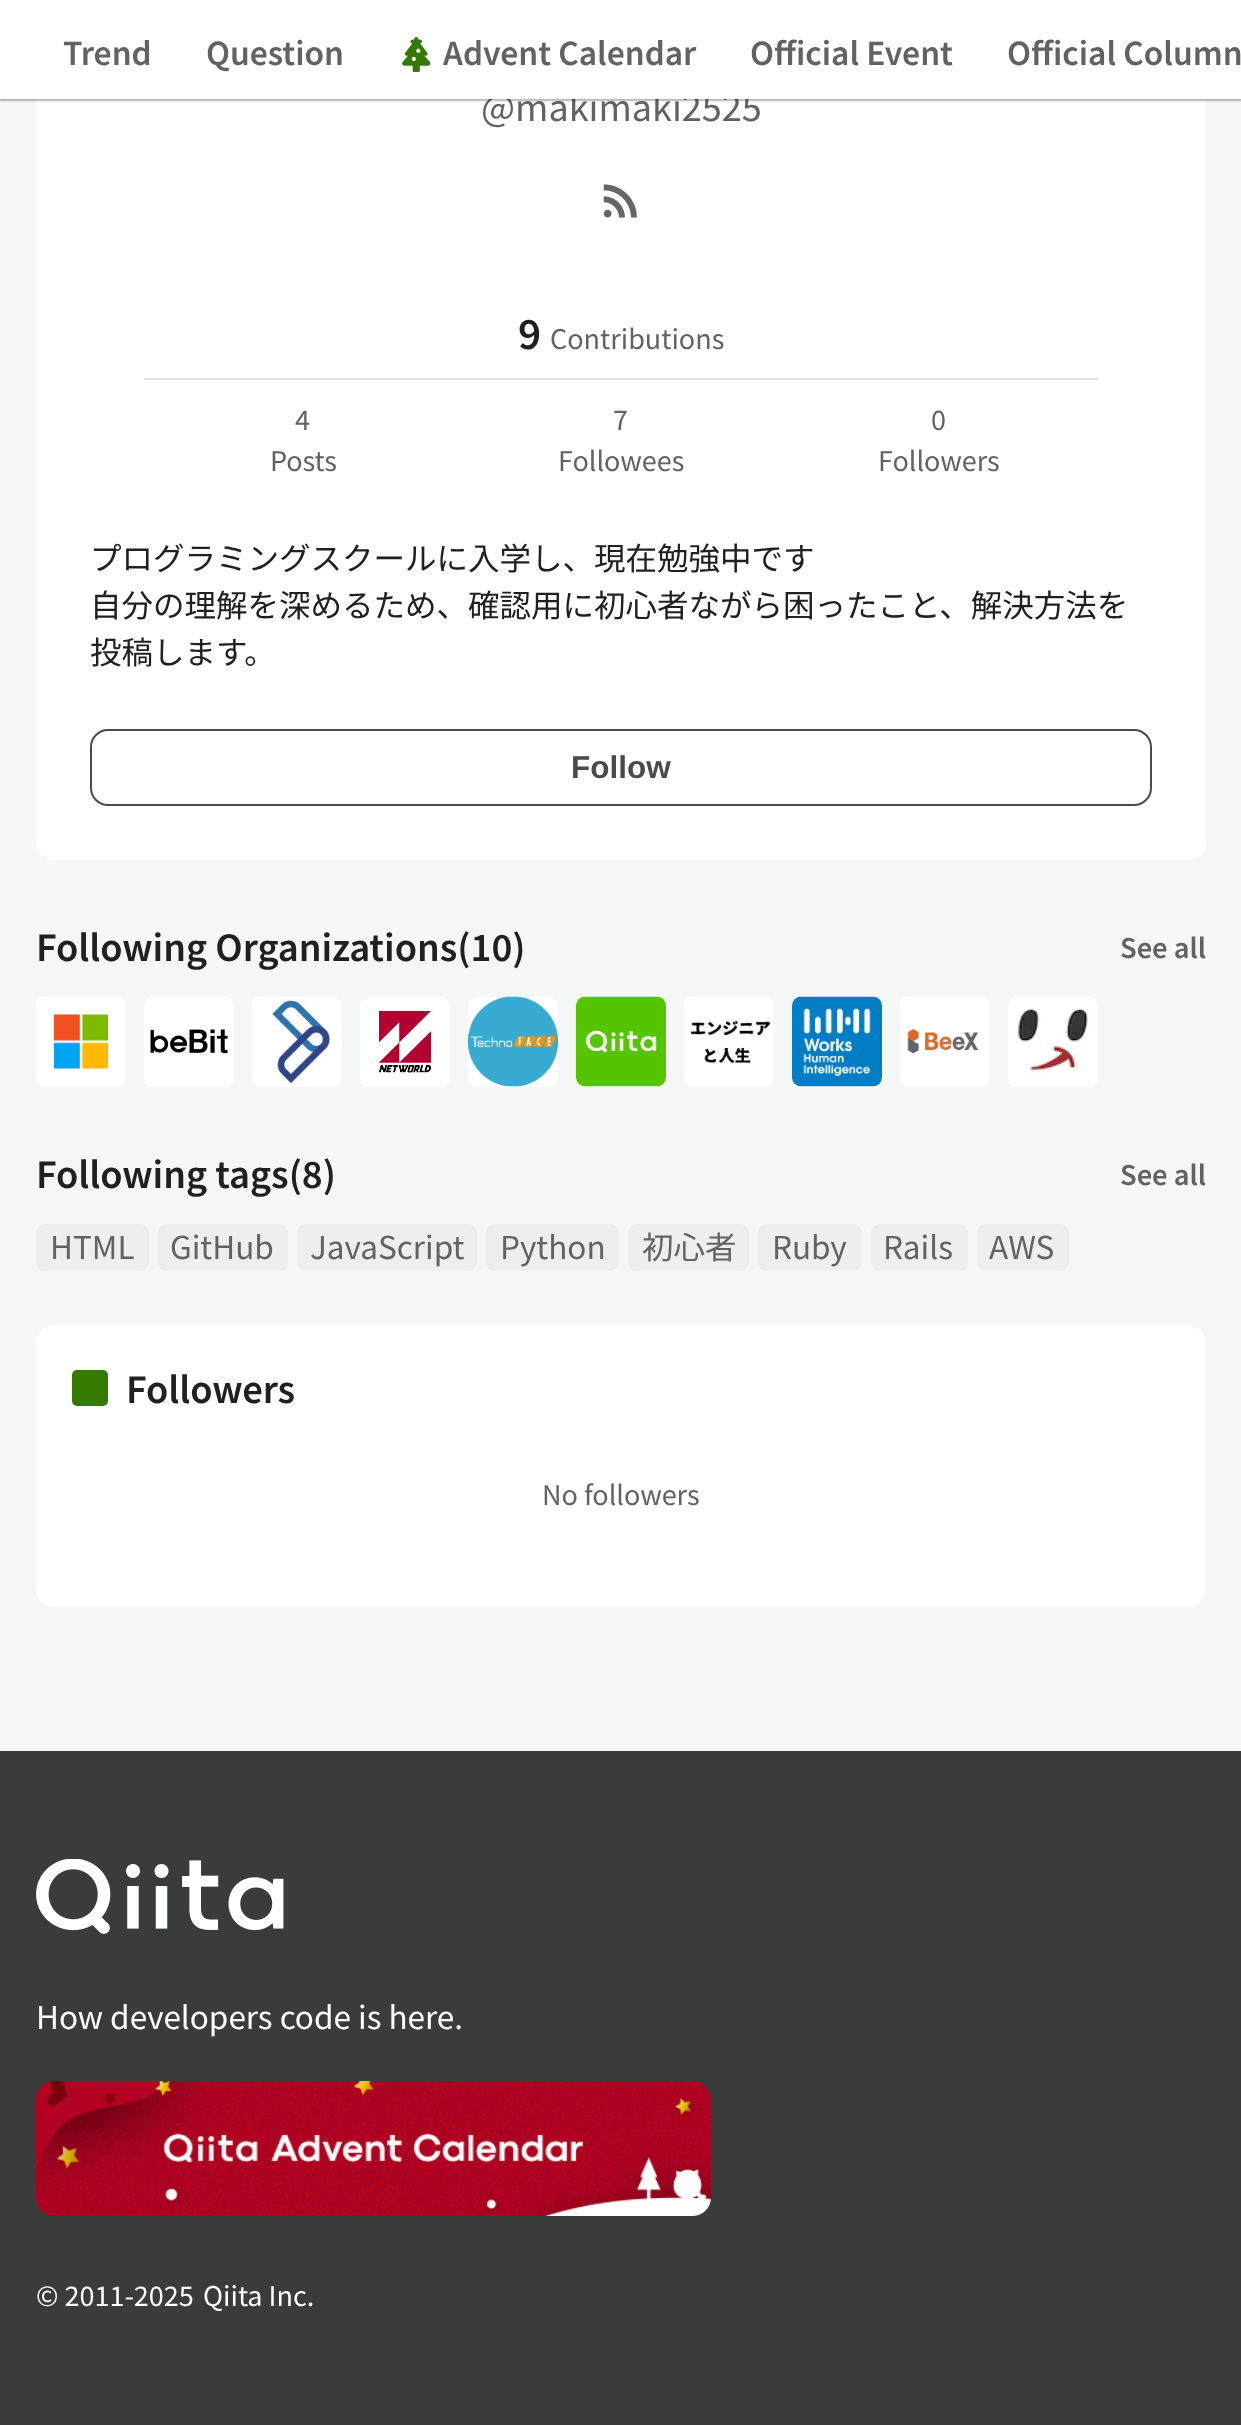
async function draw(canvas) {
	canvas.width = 1241;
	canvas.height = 2425;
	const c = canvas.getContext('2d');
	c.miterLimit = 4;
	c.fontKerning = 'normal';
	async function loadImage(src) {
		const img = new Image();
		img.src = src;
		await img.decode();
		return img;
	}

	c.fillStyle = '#f5f6f6';
	c.fillRect(0, 0, 1241, 2425);
	c.fillStyle = '#fff';
	c.beginPath();
	c.roundRect(36, -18, 1170, 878, 18);
	c.fill();
	c.font = '36px Noto Sans JP';
	c.fillStyle = '#626262';
	c.fillText('@makimaki2525', 481, 121);
	c.strokeStyle = '#00000014';
	c.lineWidth = 2;
	c.strokeRect(-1, -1, 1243, 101);
	c.fillStyle = '#1e212140';
	c.filter = 'blur(1px)';
	c.beginPath();
	c.rect(0, -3, 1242, 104);
	c.fill();
	c.filter = 'none';
	c.fillStyle = '#fff';
	c.fillRect(0, 0, 1241, 99);
	c.font = '600 31.5px Noto Sans JP';
	c.fillStyle = '#626262';
	c.fillText('Trend', 63, 65);
	c.fillText('Question', 206, 65);
	c.drawImage(await loadImage('img1.png'), 402, 36, 29, 36);
	for (const [text, x, y] of [
		['Advent Calendar', 443, 65],
		['Official Event', 750, 65],
		['Official Column', 1007, 65],
	]) {
		c.fillText(text, x, y);
	}
	c.drawImage(await loadImage('img2.png'), 603, 184, 34, 34);
	c.font = '600 40px Noto Sans JP';
	c.fillStyle = '#202020';
	c.fillText('9', 518, 349);
	c.font = '27px Noto Sans JP';
	c.fillStyle = '#626262';
	c.fillText('Contributions', 550, 349);
	c.fillStyle = '#e0e0e0';
	c.fillRect(144, 378, 954, 2);
	c.fillStyle = '#626262';
	for (const [text, x, y] of [
		['4', 295, 430],
		['Posts', 270, 471],
		['7', 613, 430],
		['Followees', 558, 471],
		['0', 931, 430],
		['Followers', 878, 471],
	]) {
		c.fillText(text, x, y);
	}
	c.font = '31.5px Noto Sans JP';
	c.fillStyle = '#202020';
	for (const [text, x, y] of [
		['プログラミングスクールに入学し、現在勉強中です', 90, 570],
		['自分の理解を深めるため、確認用に初心者ながら困ったこと、解決方法を', 90, 617],
		['投稿します。', 90, 664],
	]) {
		c.fillText(text, x, y);
	}
	c.beginPath();
	c.roundRect(91, 730, 1060, 75, 17);
	c.strokeStyle = '#494b4b';
	c.stroke();
	c.font = 'bold 31.5px Liberation Sans';
	c.fillStyle = '#494b4b';
	c.fillText('Follow', 571, 778);
	c.font = '600 36px Noto Sans JP';
	c.fillStyle = '#202020';
	c.fillText('Following Organizations(10)', 36, 961);
	c.font = '600 27px Noto Sans JP';
	c.fillStyle = '#626262';
	c.fillText('See all', 1120, 958);
	c.fillStyle = '#fff';
	c.beginPath();
	c.roundRect(36, 997, 90, 90, 9);
	c.fill();
	c.drawImage(await loadImage('img3.png'), 38, 997, 86, 73);
	c.beginPath();
	c.roundRect(144, 997, 90, 90, 9);
	c.fill();
	c.drawImage(await loadImage('img4.png'), 146, 997, 86, 57);
	c.beginPath();
	c.roundRect(252, 997, 90, 90, 9);
	c.fill();
	c.drawImage(await loadImage('img5.png'), 254, 997, 83, 88);
	c.beginPath();
	c.roundRect(360, 997, 90, 90, 9);
	c.fill();
	c.drawImage(await loadImage('img6.png'), 379, 1010, 52, 63);
	c.beginPath();
	c.roundRect(468, 997, 90, 90, 9);
	c.fill();
	c.drawImage(await loadImage('img7.png'), 468, 996, 90, 91);
	c.beginPath();
	c.roundRect(576, 997, 90, 90, 9);
	c.fill();
	c.drawImage(await loadImage('img8.png'), 576, 996, 90, 91);
	c.beginPath();
	c.roundRect(684, 997, 90, 90, 9);
	c.fill();
	c.drawImage(await loadImage('img9.png'), 686, 997, 86, 67);
	c.beginPath();
	c.roundRect(792, 997, 90, 90, 9);
	c.fill();
	c.drawImage(await loadImage('img10.png'), 792, 996, 90, 91);
	c.beginPath();
	c.roundRect(900, 997, 90, 90, 9);
	c.fill();
	c.drawImage(await loadImage('img11.png'), 902, 997, 86, 57);
	c.beginPath();
	c.roundRect(1008, 997, 90, 90, 9);
	c.fill();
	c.drawImage(await loadImage('img12.png'), 1010, 997, 86, 77);
	c.font = '600 36px Noto Sans JP';
	c.fillStyle = '#202020';
	c.fillText('Following tags(8)', 36, 1188);
	c.font = '600 27px Noto Sans JP';
	c.fillStyle = '#626262';
	c.fillText('See all', 1120, 1185);
	c.fillStyle = '#edeeee';
	c.beginPath();
	c.roundRect(36, 1224, 113, 47, 9);
	c.fill();
	c.font = '31.5px Noto Sans JP';
	c.fillStyle = '#626262';
	c.fillText('HTML', 50, 1259);
	c.fillStyle = '#edeeee';
	c.beginPath();
	c.roundRect(158, 1224, 130, 47, 9);
	c.fill();
	c.fillStyle = '#626262';
	c.fillText('GitHub', 170, 1259);
	c.fillStyle = '#edeeee';
	c.beginPath();
	c.roundRect(297, 1224, 180, 47, 9);
	c.fill();
	c.fillStyle = '#626262';
	c.fillText('JavaScript', 310, 1259);
	c.fillStyle = '#edeeee';
	c.beginPath();
	c.roundRect(486, 1224, 133, 47, 9);
	c.fill();
	c.fillStyle = '#626262';
	c.fillText('Python', 500, 1259);
	c.fillStyle = '#edeeee';
	c.beginPath();
	c.roundRect(628, 1224, 121, 47, 9);
	c.fill();
	c.fillStyle = '#626262';
	c.fillText('初心者', 642, 1259);
	c.fillStyle = '#edeeee';
	c.beginPath();
	c.roundRect(758, 1224, 104, 47, 9);
	c.fill();
	c.fillStyle = '#626262';
	c.fillText('Ruby', 772, 1259);
	c.fillStyle = '#edeeee';
	c.beginPath();
	c.roundRect(871, 1224, 97, 47, 9);
	c.fill();
	c.fillStyle = '#626262';
	c.fillText('Rails', 883, 1259);
	c.fillStyle = '#edeeee';
	c.beginPath();
	c.roundRect(977, 1224, 92, 47, 9);
	c.fill();
	c.fillStyle = '#626262';
	c.fillText('AWS', 989, 1259);
	c.fillStyle = '#fff';
	c.beginPath();
	c.roundRect(36, 1325, 1170, 282, 18);
	c.fill();
	c.fillStyle = '#357a00';
	c.beginPath();
	c.roundRect(72, 1370, 36, 36, 5);
	c.fill();
	c.font = '600 36px Noto Sans JP';
	c.fillStyle = '#202020';
	c.fillText('Followers', 126, 1403);
	c.font = '27px Noto Sans JP';
	c.fillStyle = '#626262';
	c.fillText('No followers', 542, 1505);
	c.fillStyle = '#3a3c3c';
	c.fillRect(0, 1751, 1241, 674);
	c.drawImage(await loadImage('img13.png'), 36, 1859, 248, 75);
	c.font = '31.5px Noto Sans JP';
	c.fillStyle = '#fff';
	c.fillText('How developers code is here.', 36, 2029);
	c.drawImage(await loadImage('img14.png'), 36, 2081, 675, 135);
	c.font = '27px Noto Sans JP';
	c.fillText('© 2011-2025', 36, 2306);
	c.fillText('Qiita Inc.', 203, 2306);
}

draw(document.querySelector('canvas'));
